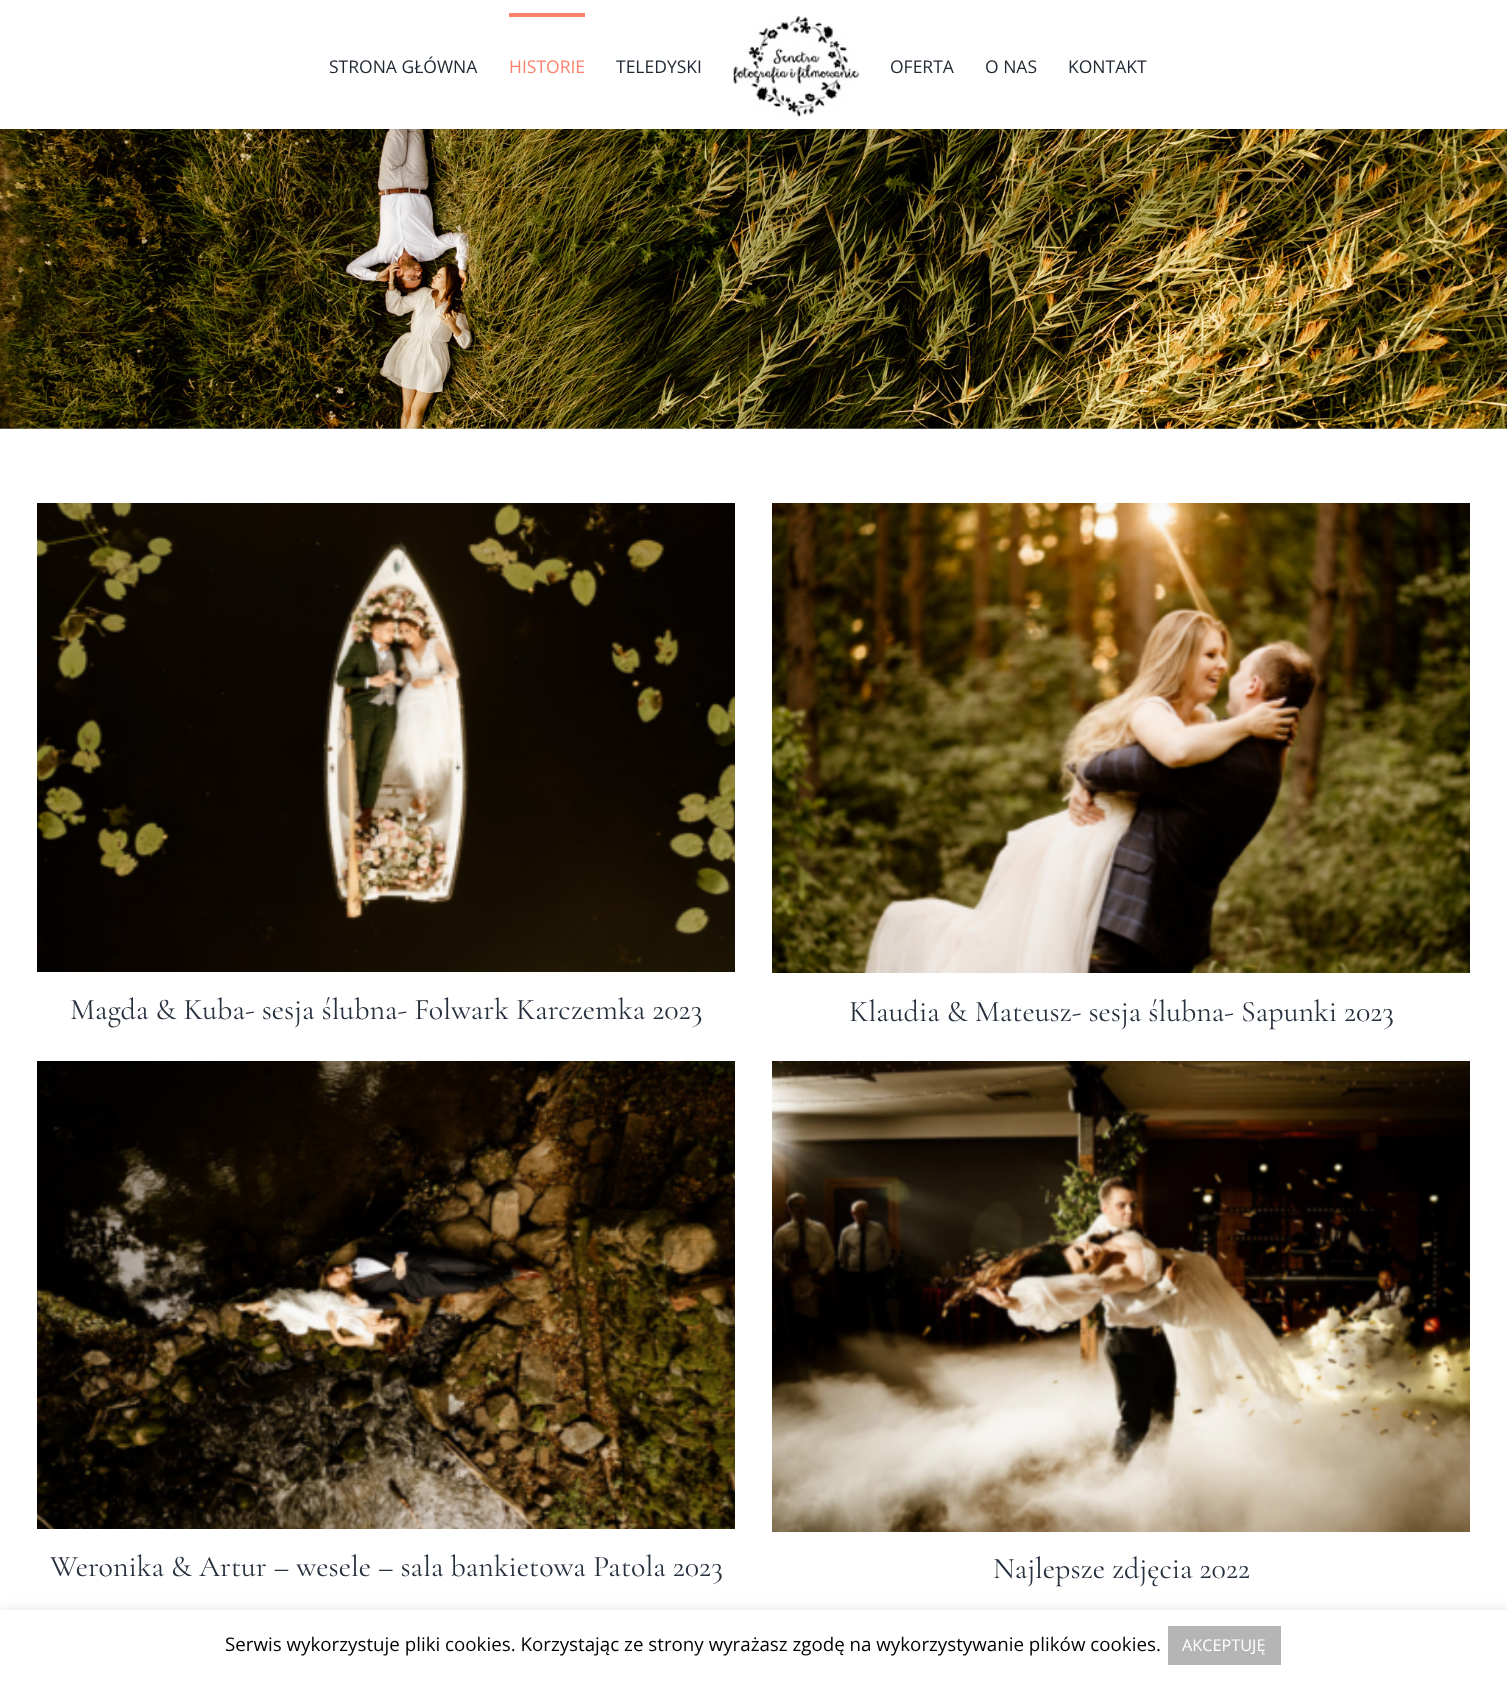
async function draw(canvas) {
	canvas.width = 1507;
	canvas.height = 1681;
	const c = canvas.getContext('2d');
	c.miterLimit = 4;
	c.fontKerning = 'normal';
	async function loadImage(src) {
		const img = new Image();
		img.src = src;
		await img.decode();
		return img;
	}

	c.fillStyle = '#fff';
	c.fillRect(0, 0, 1507, 1681);
	c.font = '17.5px Open Sans';
	c.fillStyle = '#212934';
	c.fillText('STRONA GŁÓWNA', 329, 73);
	c.fillStyle = '#fc826c';
	c.fillRect(509, 13, 76, 4);
	c.fillText('HISTORIE', 509, 73);
	c.fillStyle = '#212934';
	c.fillText('TELEDYSKI', 616, 73);
	c.drawImage(await loadImage('img1.png'), 733, 16, 126, 101);
	for (const [text, x, y] of [
		['OFERTA', 890, 73],
		['O NAS', 985, 73],
		['KONTAKT', 1068, 73],
	]) {
		c.fillText(text, x, y);
	}
	c.drawImage(await loadImage('img2.png'), 0, 129, 1507, 300);
	c.drawImage(await loadImage('img3.png'), 37, 503, 698, 469);
	c.font = '30px Cormorant Garamond';
	c.fillStyle = '#26303e';
	c.fillText('Magda & Kuba- sesja ślubna- Folwark Karczemka 2023', 70, 1019);
	c.drawImage(await loadImage('img4.png'), 772, 503, 698, 470);
	c.fillText('Klaudia & Mateusz- sesja ślubna- Sapunki 2023', 849, 1021);
	c.drawImage(await loadImage('img5.png'), 37, 1061, 698, 468);
	c.fillText('Weronika & Artur – wesele – sala bankietowa Patola 2023', 50, 1576);
	c.drawImage(await loadImage('img6.png'), 772, 1061, 698, 471);
	c.fillText('Najlepsze zdjęcia 2022', 993, 1578);
	c.fillStyle = '#acabab4d';
	c.filter = 'blur(6px)';
	c.beginPath();
	c.rect(0, 1609, 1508, 71);
	c.fill();
	c.filter = 'none';
	c.fillStyle = '#fff';
	c.fillRect(0, 1610, 1507, 71);
	c.font = '18.75px Open Sans';
	c.fillStyle = '#000';
	c.fillText('Serwis wykorzystuje pliki cookies. Korzystając ze strony wyrażasz zgodę na wykorzystywanie plików cookies.', 225, 1651);
	c.fillStyle = '#b5b5b5';
	c.fillRect(1168, 1626, 113, 39);
	c.font = '16.25px Open Sans';
	c.fillStyle = '#fff';
	c.fillText('AKCEPTUJĘ', 1182, 1651);
}

draw(document.querySelector('canvas'));
